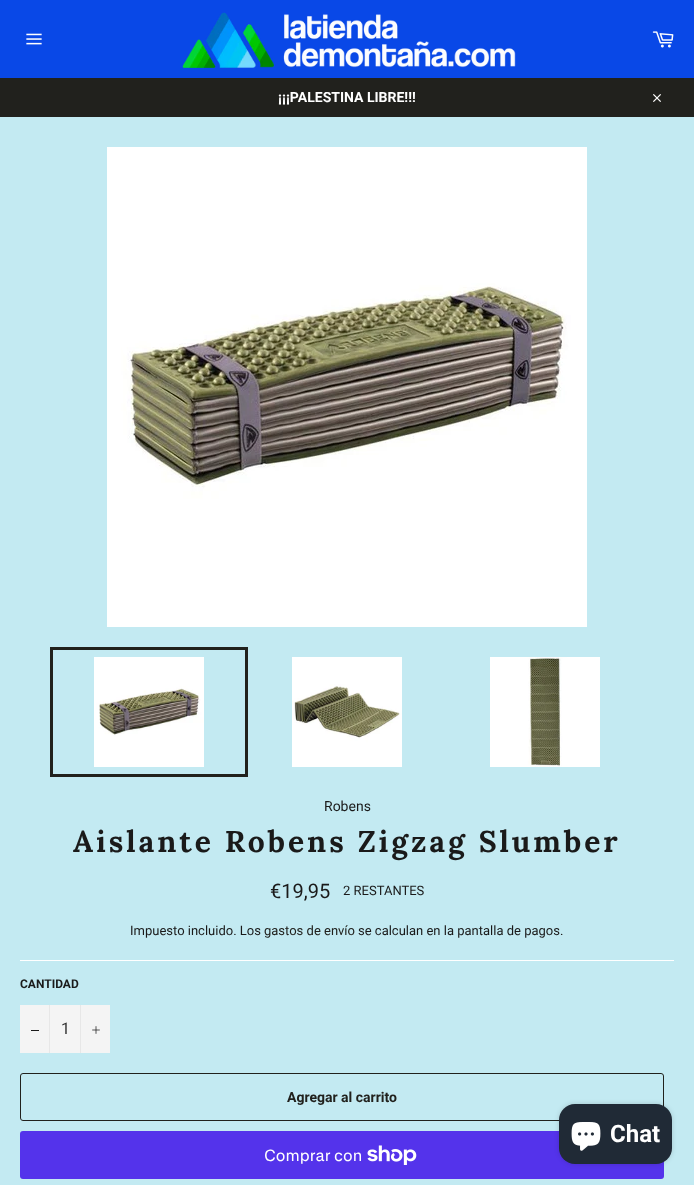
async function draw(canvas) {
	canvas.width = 694;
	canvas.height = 1185;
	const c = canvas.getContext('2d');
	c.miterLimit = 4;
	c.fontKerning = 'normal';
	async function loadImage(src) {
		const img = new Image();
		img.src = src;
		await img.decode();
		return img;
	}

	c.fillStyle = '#0948e7';
	c.fillRect(0, 0, 694, 1185);
	c.drawImage(await loadImage('img1.png'), 26, 33, 16, 12);
	c.drawImage(await loadImage('img2.png'), 182, 12, 334, 56);
	c.drawImage(await loadImage('img3.png'), 652, 31, 22, 17);
	c.fillStyle = '#21211d';
	c.fillRect(0, 78, 694, 39);
	c.font = 'bold 14px Roboto';
	c.fillStyle = '#fff';
	c.fillText('¡¡¡PALESTINA LIBRE!!!', 278, 102);
	c.drawImage(await loadImage('img4.png'), 653, 94, 8, 8);
	c.fillStyle = '#c3eaf2';
	c.fillRect(0, 117, 694, 1068);
	c.drawImage(await loadImage('img5.png'), 107, 147, 480, 480);
	c.drawImage(await loadImage('img6.png'), 94, 657, 110, 110);
	c.strokeStyle = '#21211d';
	c.lineWidth = 3;
	c.strokeRect(51.5, 648.5, 195, 127);
	c.drawImage(await loadImage('img7.png'), 292, 657, 110, 110);
	c.drawImage(await loadImage('img8.png'), 490, 657, 110, 110);
	c.font = '14px Roboto';
	c.fillStyle = '#1a1a1a';
	c.fillText('Robens', 324, 811);
	c.letterSpacing = '3px';
	c.font = 'bold 30px Lora';
	c.fillText('Aislante Robens Zigzag Slumber', 73, 852);
	c.letterSpacing = '0px';
	c.font = '20px Roboto';
	c.fillText('€19,95', 270, 898);
	c.font = '13px Roboto';
	c.fillText('2 RESTANTES', 343, 895);
	c.fillText('Impuesto incluido. Los', 130, 935);
	c.fillStyle = '#21211d';
	c.fillText('gastos de envío', 264, 935);
	c.fillStyle = '#1a1a1a';
	c.fillText('se calculan en la pantalla de pagos.', 358, 935);
	c.fillStyle = '#fff';
	c.fillRect(20, 960, 654, 1);
	c.font = 'bold 12px Roboto';
	c.fillStyle = '#1a1a1a';
	c.fillText('CANTIDAD', 20, 988);
	for (const [x, y, w, h, color] of [
		[20, 1005, 90, 48, '#f4f4f4'],
		[49, 1005, 1, 48, '#e7e7e7'],
		[31, 1030, 8, 1, '#1a1a1a'],
	]) {
		c.fillStyle = color;
		c.fillRect(x, y, w, h);
	}
	c.font = '16px Roboto';
	c.fillStyle = '#333';
	c.fillText('1', 61, 1034);
	c.fillStyle = '#e7e7e7';
	c.fillRect(80, 1005, 1, 48);
	c.drawImage(await loadImage('img9.png'), 92, 1026, 8, 8);
	c.beginPath();
	c.roundRect(20.5, 1073.5, 643, 47, 2.5);
	c.lineWidth = 1;
	c.stroke();
	c.font = 'bold 14px Roboto';
	c.fillStyle = '#21211d';
	c.fillText('Agregar al carrito', 287, 1102);
	c.fillStyle = '#5433eb';
	c.beginPath();
	c.roundRect(20, 1131, 644, 48, 3);
	c.fill();
	c.font = '16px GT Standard';
	c.fillStyle = '#fff';
	c.fillText('Comprar con', 264, 1161);
	c.drawImage(await loadImage('img10.png'), 367, 1145, 50, 20);
	c.fillStyle = '#00000026';
	c.filter = 'blur(2.5px)';
	c.beginPath();
	c.roundRect(559, 1104, 113, 60, 16);
	c.fill();
	c.filter = 'none';
	c.fillStyle = '#202a36';
	c.beginPath();
	c.roundRect(559, 1104, 113, 60, 16);
	c.fill();
	c.drawImage(await loadImage('img11.png'), 571, 1122, 30, 29);
	c.font = 'bold 24px Roboto';
	c.fillStyle = '#fff';
	c.fillText('Chat', 610, 1142);
}

draw(document.querySelector('canvas'));
